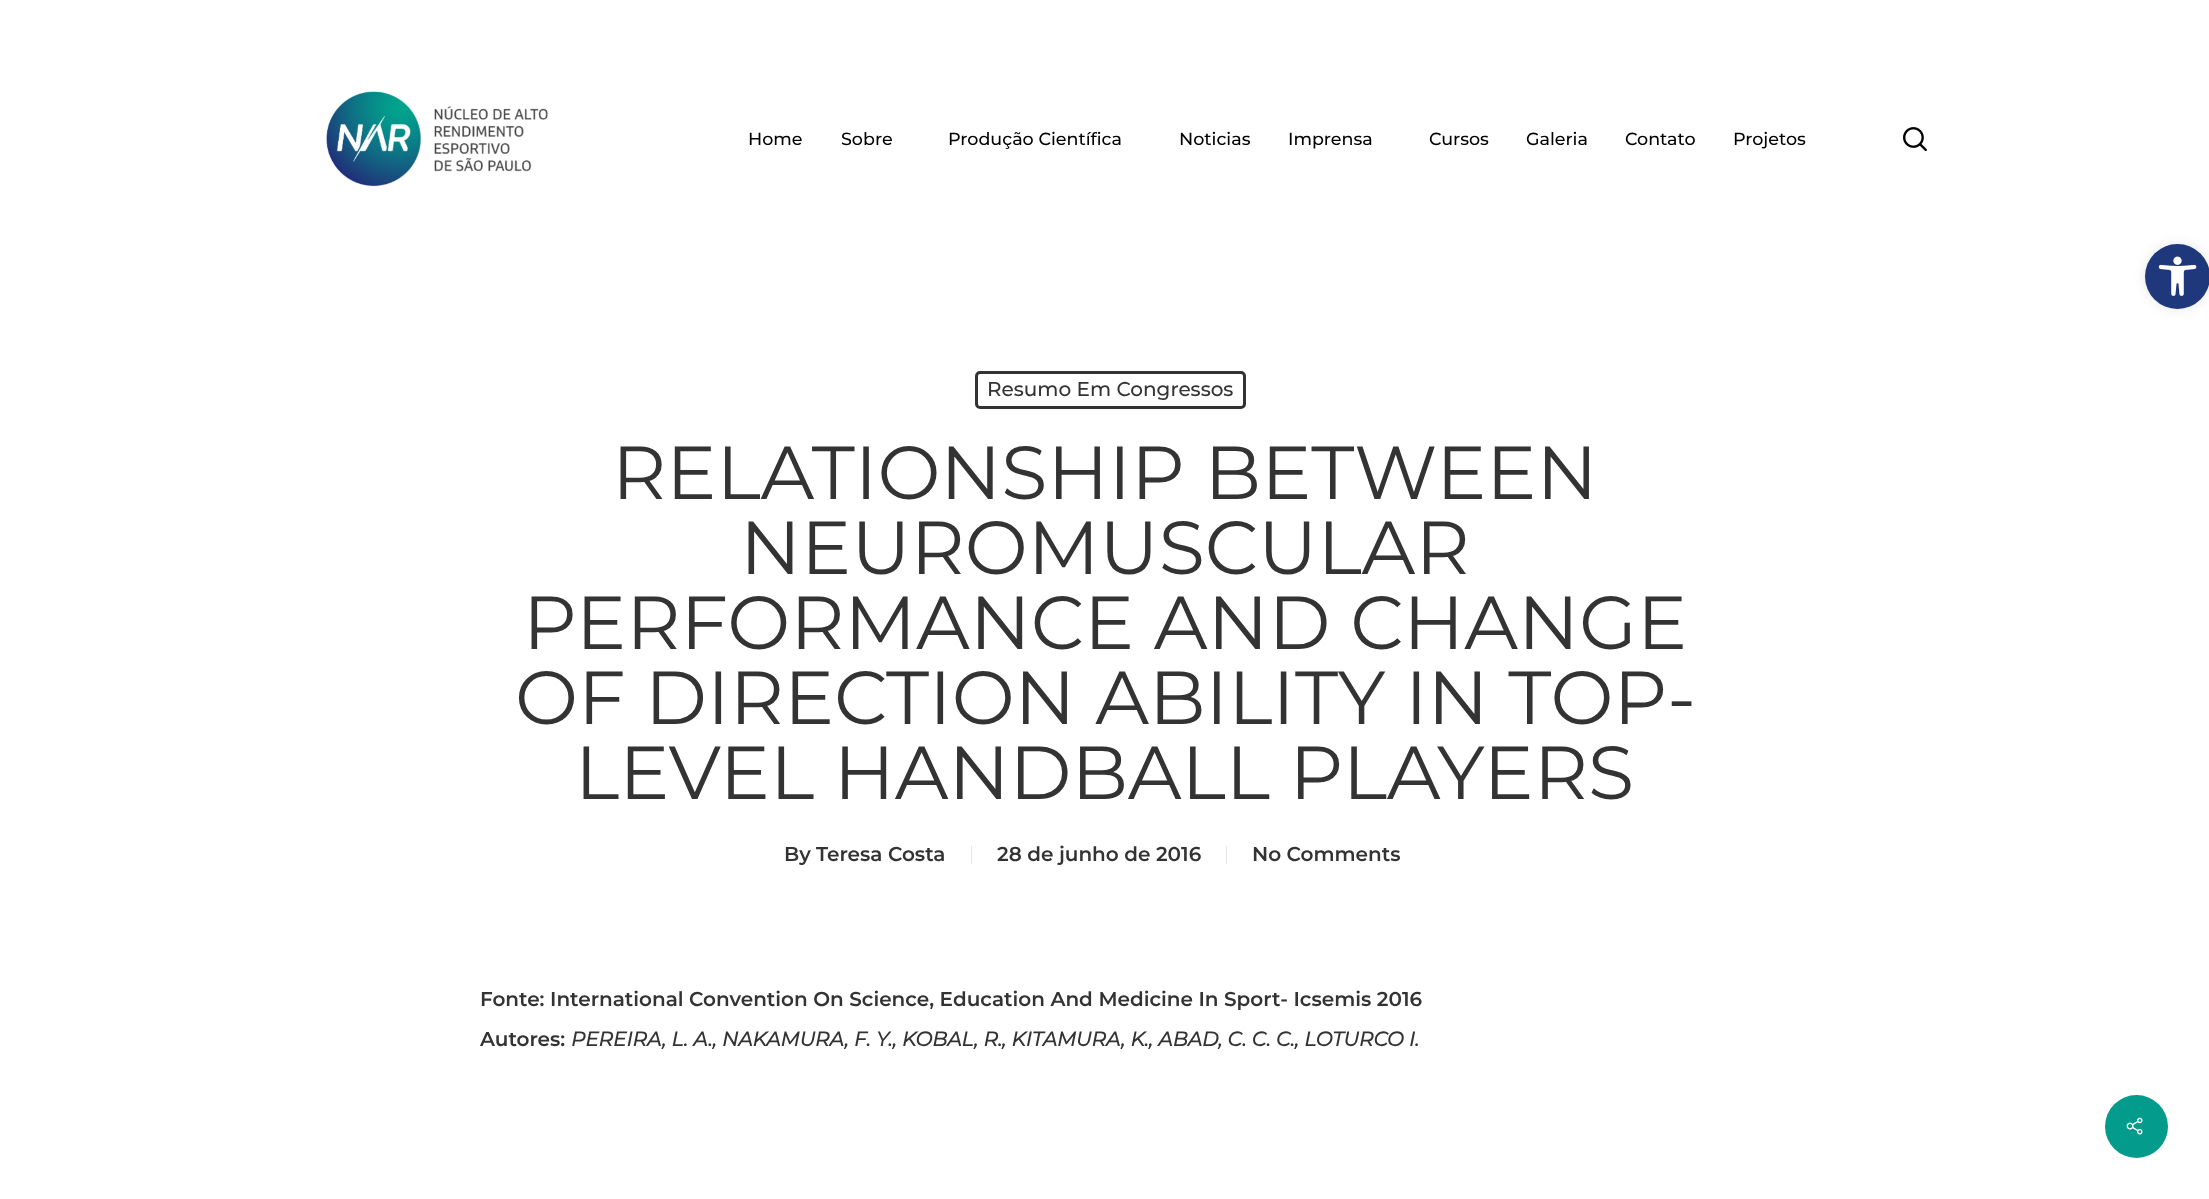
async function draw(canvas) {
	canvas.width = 2209;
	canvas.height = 1199;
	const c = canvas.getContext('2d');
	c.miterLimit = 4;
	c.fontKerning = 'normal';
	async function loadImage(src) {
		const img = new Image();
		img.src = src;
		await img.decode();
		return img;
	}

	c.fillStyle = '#fff';
	c.fillRect(0, 0, 2209, 1199);
	c.drawImage(await loadImage('img1.png'), 326, 91, 222, 96);
	c.font = '500 17.5px Montserrat';
	c.fillStyle = '#000';
	for (const [text, x, y] of [
		['Home', 748, 145],
		['Sobre', 841, 145],
		['Produção Científica', 948, 145],
		['Noticias', 1179, 145],
		['Imprensa', 1288, 145],
		['Cursos', 1429, 145],
		['Galeria', 1526, 145],
		['Contato', 1625, 145],
		['Projetos', 1733, 145],
	]) {
		c.fillText(text, x, y);
	}
	c.drawImage(await loadImage('img2.png'), 1903, 127, 24, 25);
	c.beginPath();
	c.roundRect(976.5, 372.5, 268, 35, 3.5);
	c.strokeStyle = '#333';
	c.lineWidth = 3;
	c.stroke();
	c.font = '500 20px Montserrat';
	c.fillStyle = '#333';
	c.fillText('Resumo Em Congressos', 987, 396);
	c.font = '75px Montserrat';
	for (const [text, x, y] of [
		['RELATIONSHIP BETWEEN', 612, 499],
		['NEUROMUSCULAR', 740, 574],
		['PERFORMANCE AND CHANGE', 523, 649],
		['OF DIRECTION ABILITY IN TOP-', 515, 724],
		['LEVEL HANDBALL PLAYERS', 575, 799],
	]) {
		c.fillText(text, x, y);
	}
	c.font = '600 20px Montserrat';
	c.fillText('By', 784, 861);
	c.fillText('Teresa Costa', 816, 861);
	c.fillStyle = '#e6e6e6';
	c.fillRect(971, 846, 1, 18);
	c.fillStyle = '#333';
	c.fillText('28 de junho de 2016', 997, 861);
	c.fillStyle = '#e6e6e6';
	c.fillRect(1226, 846, 1, 18);
	c.fillStyle = '#333';
	for (const [text, x, y] of [
		['No Comments', 1252, 861],
		['Fonte: International Convention On Science, Education And Medicine In Sport- Icsemis 2016', 480, 1006],
		['Autores:', 480, 1046],
	]) {
		c.fillText(text, x, y);
	}
	c.font = 'italic bold 20px Montserrat';
	c.fillText('PEREIRA, L. A., NAKAMURA, F. Y., KOBAL, R., KITAMURA, K., ABAD, C. C. C., LOTURCO I.', 571, 1046);
	c.fillStyle = '#039b8b';
	c.beginPath();
	c.arc(2136.5, 1126.5, 31.5, 0, 2 * Math.PI);
	c.fill();
	c.drawImage(await loadImage('img3.png'), 2126, 1117, 17, 18);
	c.fillStyle = '#0000001a';
	c.filter = 'blur(6px)';
	c.beginPath();
	c.roundRect(2145, 244, 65, 65, 32.5);
	c.fill();
	c.filter = 'none';
	c.fillStyle = '#1f387b';
	c.beginPath();
	c.arc(2177.5, 276.5, 32.5, 0, 2 * Math.PI);
	c.fill();
	c.drawImage(await loadImage('img4.png'), 2158, 256, 39, 40);
}

draw(document.querySelector('canvas'));
